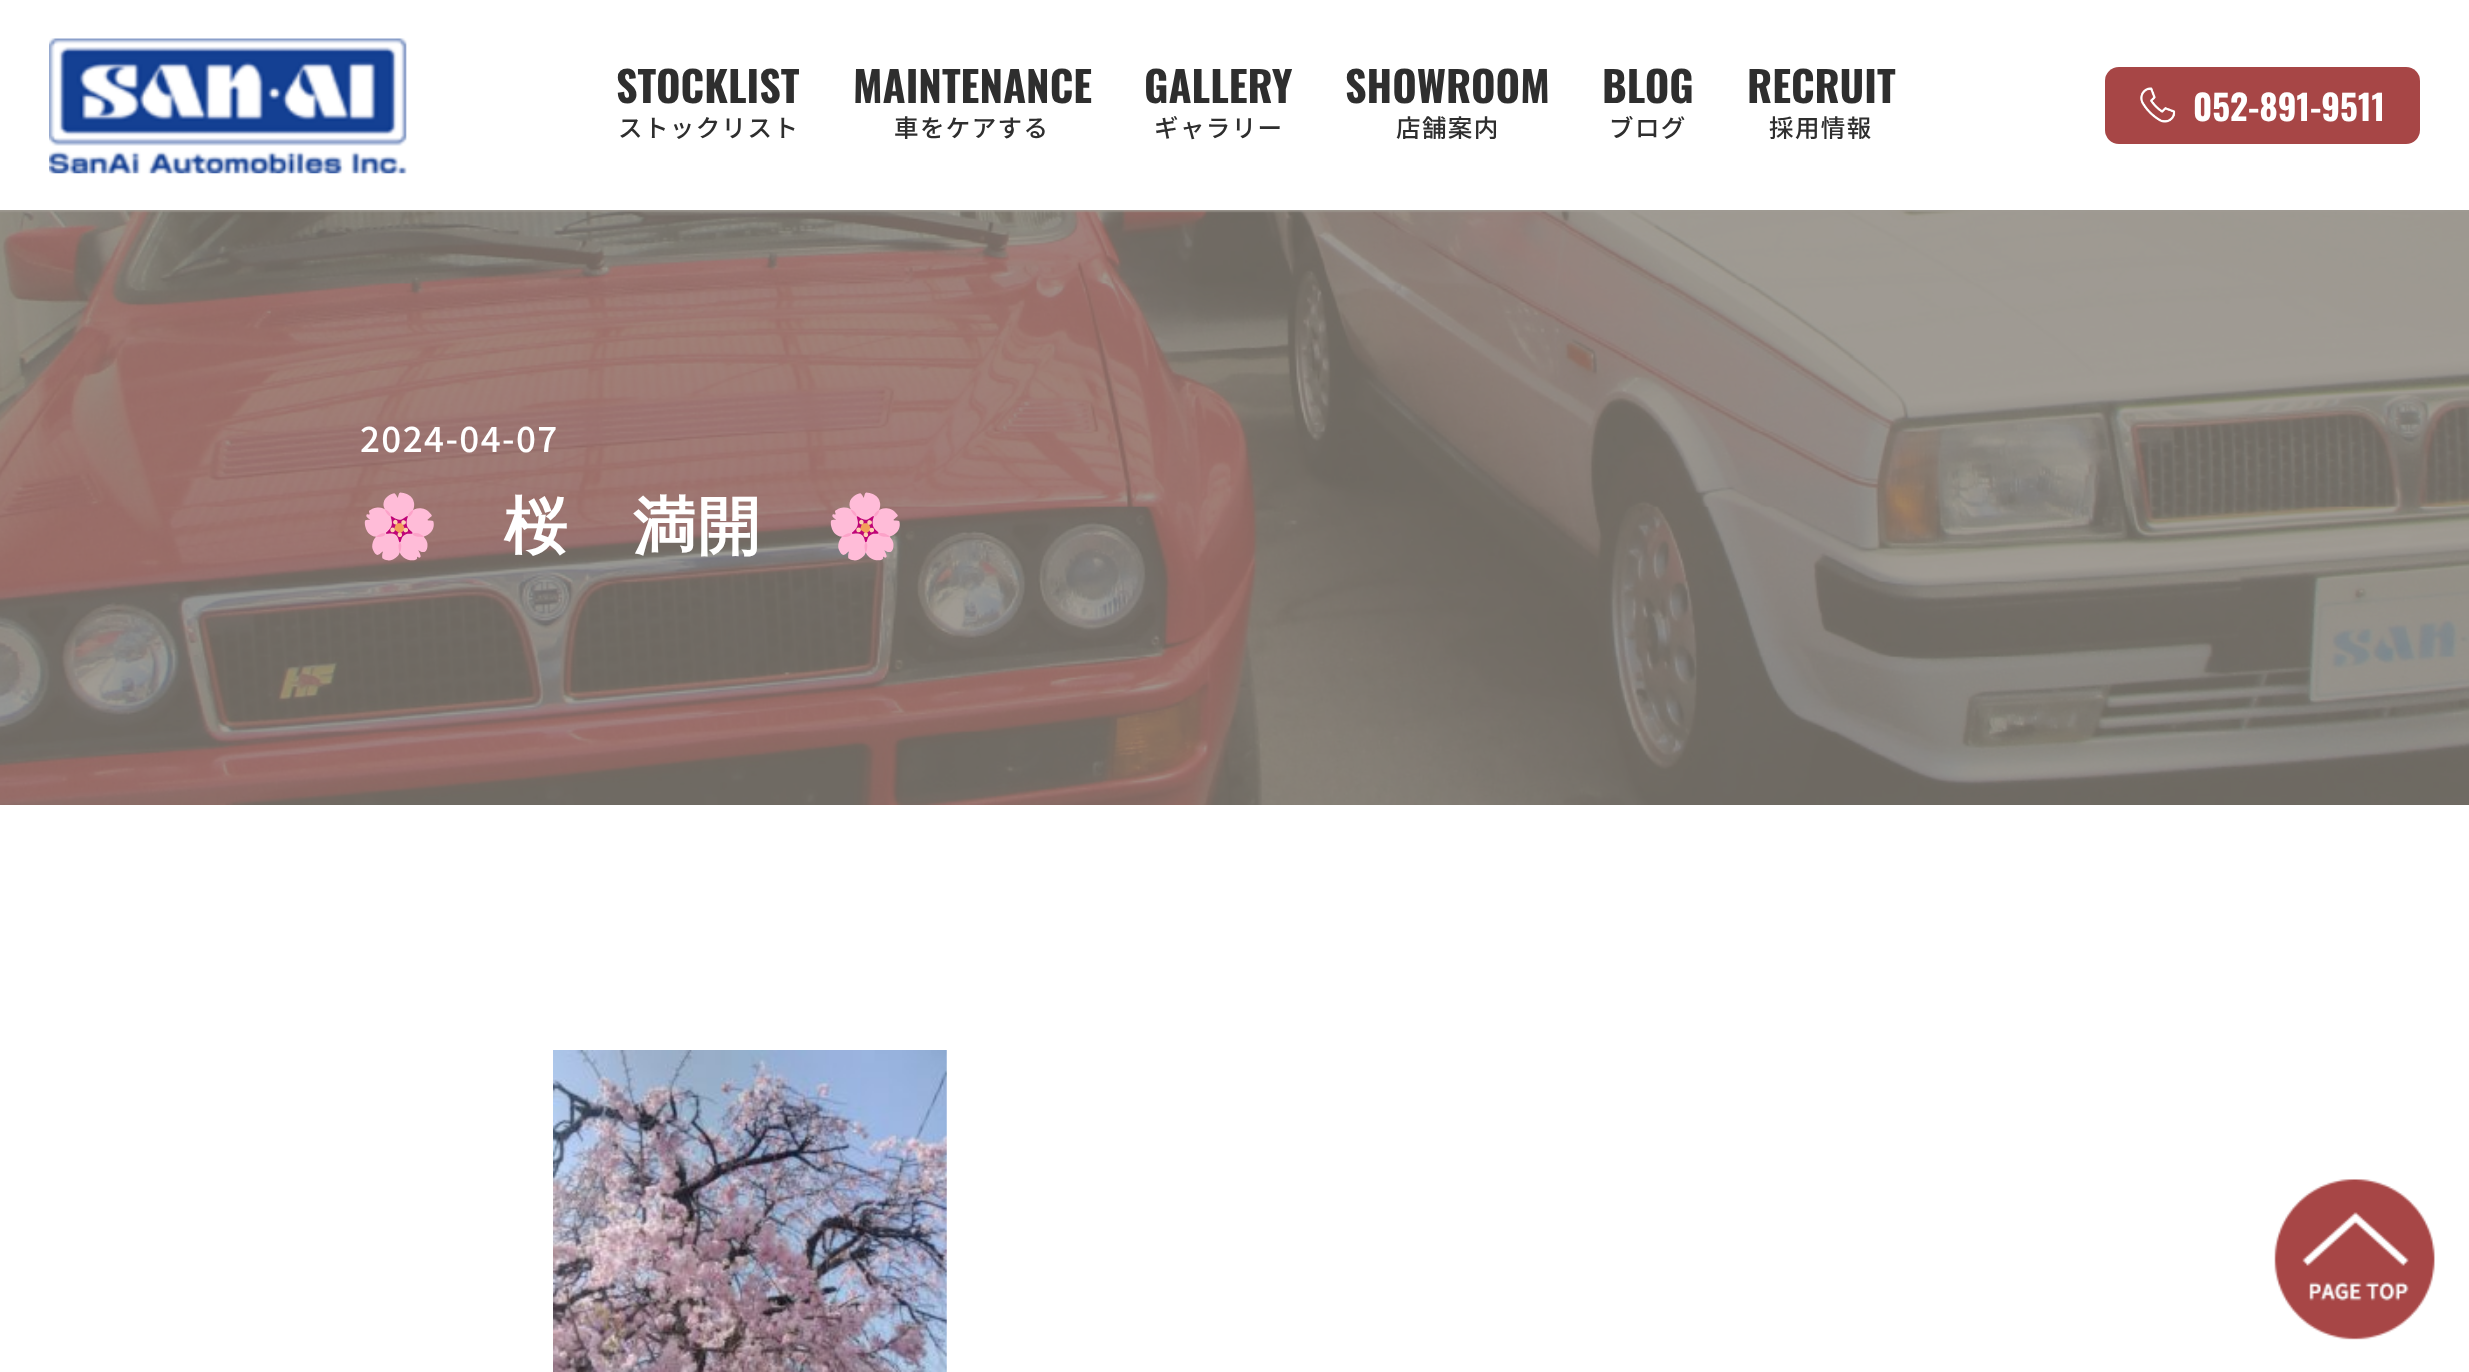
async function draw(canvas) {
	canvas.width = 2469;
	canvas.height = 1372;
	const c = canvas.getContext('2d');
	c.miterLimit = 4;
	c.fontKerning = 'normal';
	async function loadImage(src) {
		const img = new Image();
		img.src = src;
		await img.decode();
		return img;
	}

	c.fillStyle = '#fff';
	c.fillRect(0, 0, 2469, 1372);
	c.drawImage(await loadImage('img1.png'), 49, 38, 358, 136);
	c.font = 'bold 42px Oswald';
	c.fillStyle = '#2e2e2e';
	c.fillText('STOCKLIST', 616, 103);
	c.letterSpacing = '1.4px';
	c.font = '500 24.5px Noto Sans JP';
	c.fillText('ストックリスト', 618, 137);
	c.letterSpacing = '0px';
	c.font = 'bold 42px Oswald';
	c.fillText('MAINTENANCE', 853, 103);
	c.letterSpacing = '1.4px';
	c.font = '500 24.5px Noto Sans JP';
	c.fillText('車をケアする', 894, 137);
	c.letterSpacing = '0px';
	c.font = 'bold 42px Oswald';
	c.fillText('GALLERY', 1144, 103);
	c.letterSpacing = '1.4px';
	c.font = '500 24.5px Noto Sans JP';
	c.fillText('ギャラリー', 1154, 137);
	c.letterSpacing = '0px';
	c.font = 'bold 42px Oswald';
	c.fillText('SHOWROOM', 1345, 103);
	c.letterSpacing = '1.4px';
	c.font = '500 24.5px Noto Sans JP';
	c.fillText('店舗案内', 1396, 137);
	c.letterSpacing = '0px';
	c.font = 'bold 42px Oswald';
	c.fillText('BLOG', 1602, 103);
	c.letterSpacing = '1.4px';
	c.font = '500 24.5px Noto Sans JP';
	c.fillText('ブログ', 1609, 137);
	c.letterSpacing = '0px';
	c.font = 'bold 42px Oswald';
	c.fillText('RECRUIT', 1747, 103);
	c.letterSpacing = '1.4px';
	c.font = '500 24.5px Noto Sans JP';
	c.fillText('採用情報', 1769, 137);
	c.fillStyle = '#a74646';
	c.beginPath();
	c.roundRect(2105, 67, 315, 77, 14);
	c.fill();
	c.drawImage(await loadImage('img2.png'), 2140, 87, 36, 36);
	c.letterSpacing = '0px';
	c.font = 'bold 35px Oswald';
	c.fillStyle = '#fff';
	c.fillText('052-891-9511', 2193, 121);
	c.drawImage(await loadImage('img3.png'), 0, 210, 2469, 595);
	c.letterSpacing = '1.4px';
	c.font = '500 35px Noto Sans JP';
	c.fillText('2024-04-07', 360, 452);
	c.font = 'bold 63px Noto Color Emoji';
	c.fillText('🌸', 360, 548);
	c.font = 'bold 63px WenQuanYi Zen Hei';
	c.fillText('桜　満開', 504, 548);
	c.font = 'bold 63px Noto Color Emoji';
	c.fillText('🌸', 826, 548);
	c.drawImage(await loadImage('img4.png'), 553, 1050, 394, 322);
	c.drawImage(await loadImage('img5.png'), 2274, 1179, 161, 161);
}

draw(document.querySelector('canvas'));
